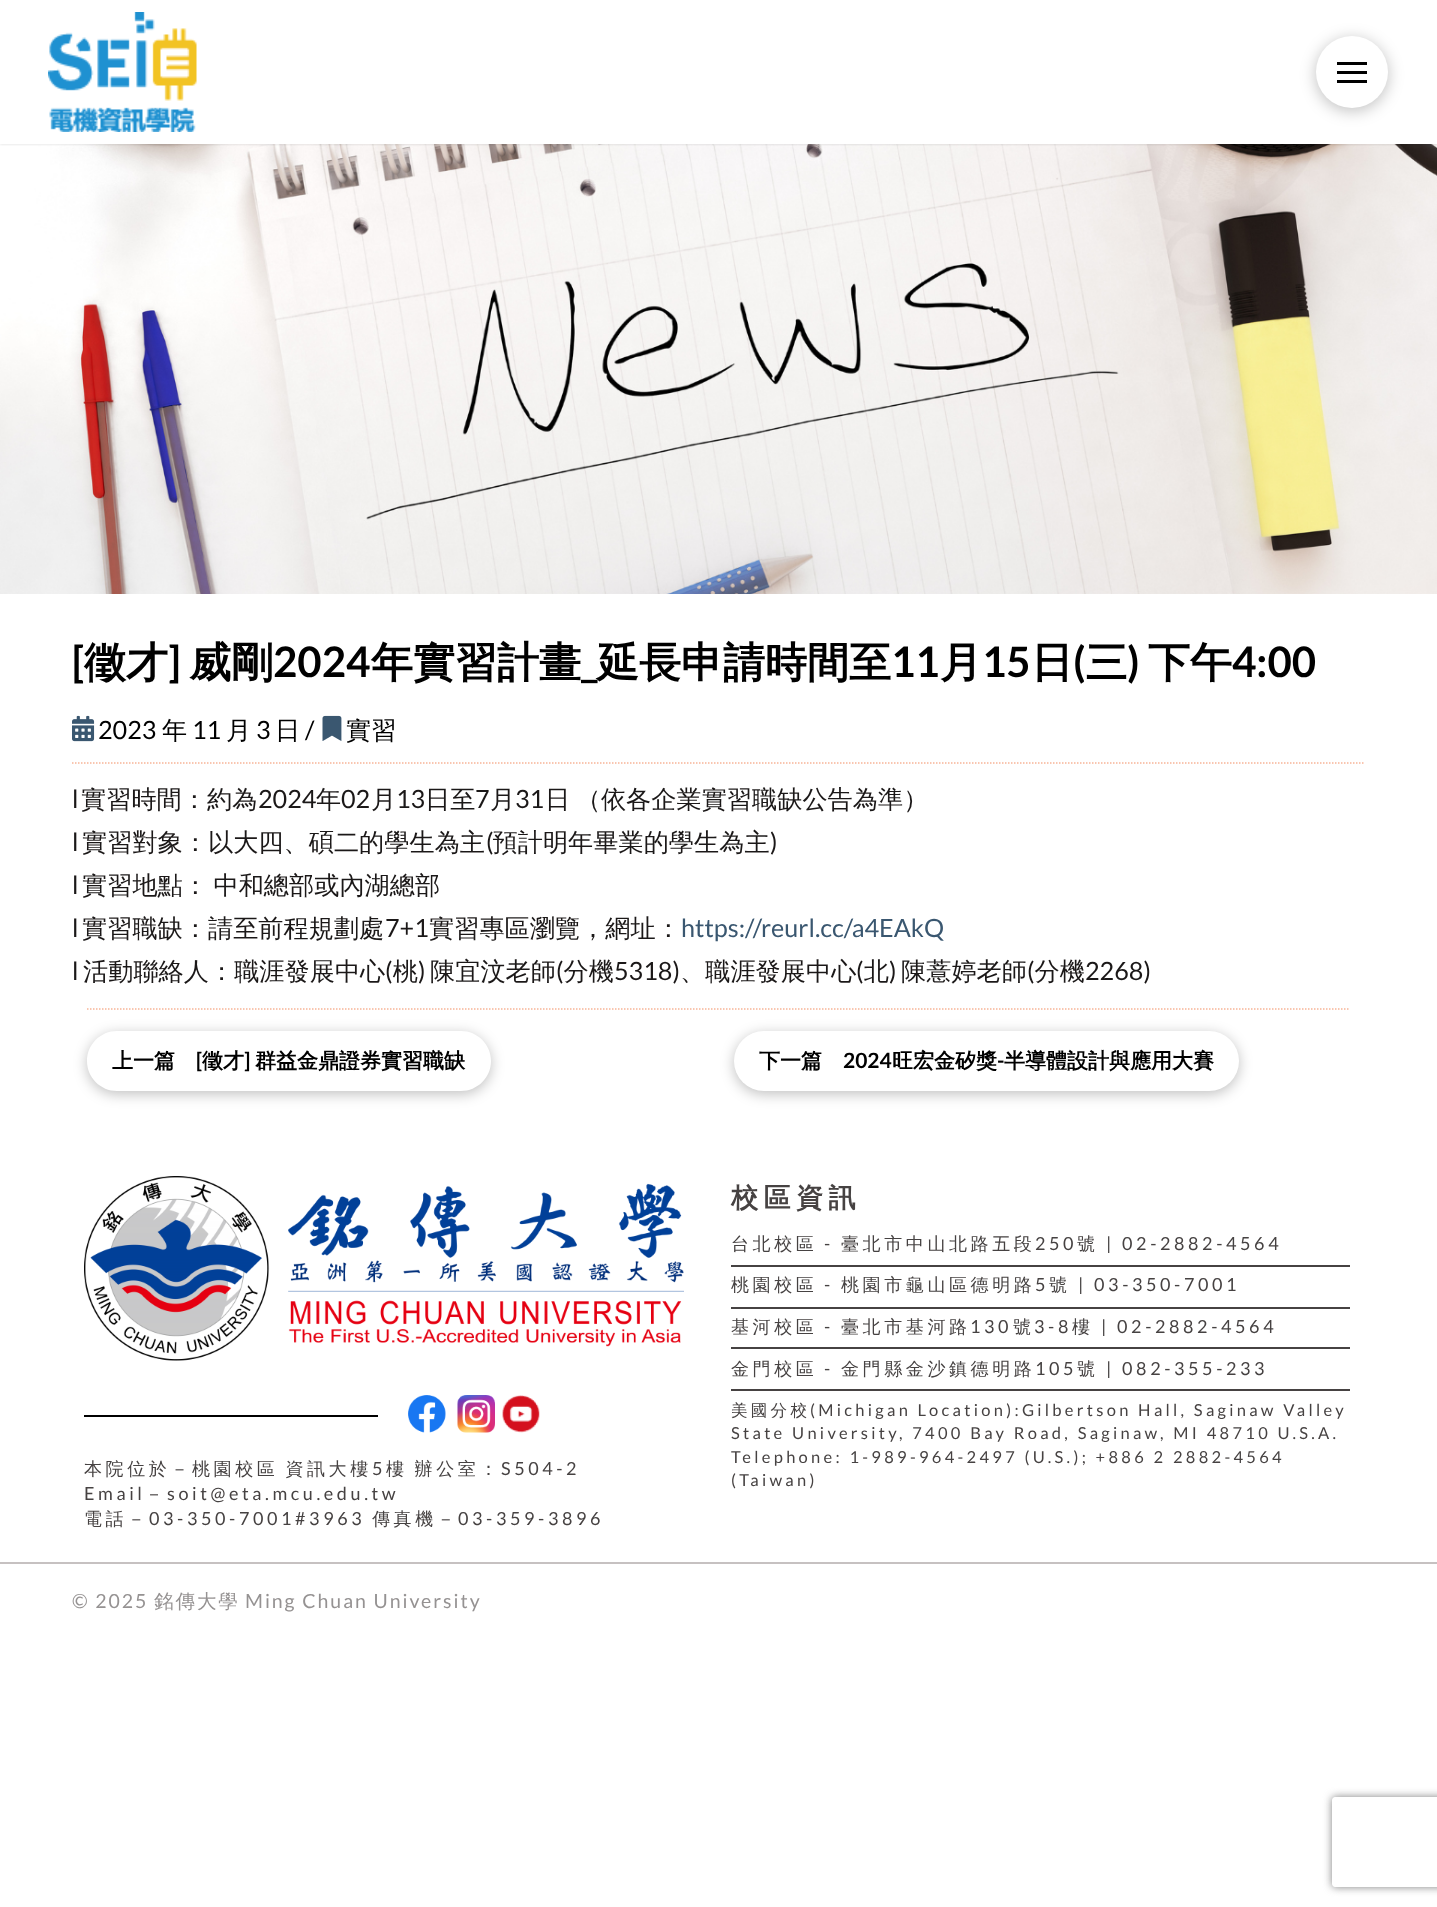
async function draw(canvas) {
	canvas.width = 1437;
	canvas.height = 1907;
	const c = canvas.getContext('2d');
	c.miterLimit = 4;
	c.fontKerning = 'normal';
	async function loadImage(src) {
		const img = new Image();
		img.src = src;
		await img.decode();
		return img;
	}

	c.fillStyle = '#fff';
	c.fillRect(0, 0, 1437, 1907);
	c.drawImage(await loadImage('img2.png'), 0, 144, 1437, 450);
	c.save();
	c.beginPath();
	c.rect(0, 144, 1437, 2);
	c.clip();
	c.fillStyle = '#00000026';
	c.filter = 'blur(1.5px)';
	c.beginPath();
	c.rect(0, 0, 1437, 144);
	c.fill();
	c.filter = 'none';
	c.restore();
	c.drawImage(await loadImage('img1.png'), 48, 12, 149, 120);
	c.fillStyle = '#00000040';
	c.filter = 'blur(8px)';
	c.beginPath();
	c.roundRect(1316, 39, 72, 72, 36);
	c.fill();
	c.filter = 'none';
	c.fillStyle = '#fff';
	c.beginPath();
	c.arc(1352, 72, 36, 0, 2 * Math.PI);
	c.fill();
	for (const [x, y, w, h, color] of [
		[1337, 62, 30, 3, '#000'],
		[1337, 71, 30, 3, '#000'],
		[1337, 80, 30, 3, '#000'],
	]) {
		c.fillStyle = color;
		c.fillRect(x, y, w, h);
	}
	c.font = 'bold 42px Lato';
	c.fillText('[', 72, 677);
	c.font = 'bold 42px WenQuanYi Zen Hei';
	c.fillText('徵才', 84, 677);
	c.font = 'bold 42px Lato';
	c.fillText(']', 168, 677);
	c.font = 'bold 42px WenQuanYi Zen Hei';
	c.fillText('威剛', 189, 677);
	c.fillText('年實習計畫', 371, 677);
	c.font = 'bold 42px Lato';
	c.fillText('_', 581, 677);
	c.font = 'bold 42px WenQuanYi Zen Hei';
	for (const [text, x, y] of [
		['延長申請時間至', 597, 677],
		['月', 940, 677],
		['日 三', 1031, 677],
	]) {
		c.fillText(text, x, y);
	}
	c.font = 'bold 42px Lato';
	c.fillText('(', 1073, 677);
	c.fillText(')', 1127, 677);
	c.font = 'bold 42px WenQuanYi Zen Hei';
	c.fillText('下午', 1148, 677);
	c.font = 'bold 42px Lato';
	for (const [text, x, y] of [
		['2024', 273, 677],
		['11', 891, 677],
		['15', 982, 677],
		['4:00', 1232, 677],
	]) {
		c.fillText(text, x, y);
	}
	c.drawImage(await loadImage('img3.png'), 72, 715, 23, 27);
	c.font = '25.2px Lato';
	c.fillText('2023', 98, 739);
	c.font = '500 25.2px WenQuanYi Zen Hei';
	c.fillText('年', 162, 739);
	c.font = '25.2px Lato';
	c.fillText('11', 192, 739);
	c.font = '500 25.2px WenQuanYi Zen Hei';
	c.fillText('月', 226, 739);
	c.font = '25.2px Lato';
	c.fillText('3', 256, 739);
	c.font = '500 25.2px WenQuanYi Zen Hei';
	c.fillText('日', 275, 739);
	c.font = '25.2px Lato';
	c.fillText('/', 305, 739);
	c.drawImage(await loadImage('img4.png'), 322, 715, 20, 26);
	c.font = '500 25.2px WenQuanYi Zen Hei';
	c.fillText('實習', 346, 739);
	c.beginPath();
	c.moveTo(72, 763);
	c.lineTo(1365, 763);
	c.strokeStyle = '#f7b497';
	c.lineWidth = 1.5;
	c.setLineDash([1.5, 1.5]);
	c.stroke();
	c.font = '25.2px Lato';
	c.fillStyle = '#1b1818';
	c.fillText('l', 72, 808);
	c.font = '500 25.2px WenQuanYi Zen Hei';
	c.fillText('實習時間：約為', 81, 808);
	c.font = '25.2px Lato';
	c.fillText('2024', 258, 808);
	c.font = '500 25.2px WenQuanYi Zen Hei';
	c.fillText('年', 316, 808);
	c.font = '25.2px Lato';
	c.fillText('02', 341, 808);
	c.font = '500 25.2px WenQuanYi Zen Hei';
	c.fillText('月', 371, 808);
	c.font = '25.2px Lato';
	c.fillText('13', 396, 808);
	c.font = '500 25.2px WenQuanYi Zen Hei';
	c.fillText('日至', 425, 808);
	c.font = '25.2px Lato';
	c.fillText('7', 475, 808);
	c.font = '500 25.2px WenQuanYi Zen Hei';
	c.fillText('月', 490, 808);
	c.font = '25.2px Lato';
	c.fillText('31', 515, 808);
	c.wordSpacing = '-2px';
	c.font = '500 25.2px WenQuanYi Zen Hei';
	c.fillText('日 （依各企業實習職缺公告為準）', 545, 808);
	c.wordSpacing = '0px';
	c.fillText('實習對象：以大四、碩二的學生為主 預計明年畢業的學生為主', 82, 851);
	c.font = '25.2px Lato';
	for (const [text, x, y] of [
		['l', 72, 851],
		['(', 486, 851],
		[')', 770, 851],
		['l', 72, 894],
	]) {
		c.fillText(text, x, y);
	}
	c.wordSpacing = '-2px';
	c.font = '500 25.2px WenQuanYi Zen Hei';
	c.fillText('實習地點： 中和總部或內湖總部', 82, 894);
	c.wordSpacing = '0px';
	c.font = '25.2px Lato';
	c.fillText('l', 72, 937);
	c.font = '500 25.2px WenQuanYi Zen Hei';
	c.fillText('實習職缺：請至前程規劃處', 82, 937);
	c.font = '25.2px Lato';
	c.fillText('7+1', 385, 937);
	c.font = '500 25.2px WenQuanYi Zen Hei';
	c.fillText('實習專區瀏覽，網址：', 429, 937);
	c.font = '25.2px Lato';
	c.fillStyle = '#3a5770';
	c.fillText('https://reurl.cc/a4EAkQ', 681, 937);
	c.font = '500 25.2px WenQuanYi Zen Hei';
	c.fillStyle = '#1b1818';
	for (const [text, x, y] of [
		['活動聯絡人：職涯發展中心 桃', 83, 980],
		['陳宜汶老師 分機', 430, 980],
		['、職涯發展中心 北', 680, 980],
		['陳薏婷老師 分機', 901, 980],
	]) {
		c.fillText(text, x, y);
	}
	c.font = '25.2px Lato';
	for (const [text, x, y] of [
		['l', 72, 980],
		['(', 385, 980],
		[')', 418, 980],
		['(', 556, 980],
		['5318)', 614, 980],
		['(', 856, 980],
		[')', 889, 980],
		['(', 1027, 980],
		['2268)', 1085, 980],
	]) {
		c.fillText(text, x, y);
	}
	c.beginPath();
	c.moveTo(87, 1009);
	c.lineTo(1350, 1009);
	c.stroke();
	c.save();
	c.beginPath();
	c.moveTo(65, 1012);
	c.lineTo(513, 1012);
	c.lineTo(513, 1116);
	c.lineTo(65, 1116);
	c.closePath();
	c.moveTo(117, 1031);
	c.lineTo(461, 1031);
	c.bezierCurveTo(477.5, 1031, 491, 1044.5, 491, 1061);
	c.bezierCurveTo(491, 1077.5, 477.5, 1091, 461, 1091);
	c.lineTo(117, 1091);
	c.bezierCurveTo(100.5, 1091, 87, 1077.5, 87, 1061);
	c.bezierCurveTo(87, 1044.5, 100.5, 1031, 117, 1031);
	c.closePath();
	c.clip('evenodd');
	c.fillStyle = '#00000040';
	c.filter = 'blur(7px)';
	c.beginPath();
	c.roundRect(87, 1034, 404, 60, 30);
	c.fill();
	c.filter = 'none';
	c.restore();
	c.font = 'bold 21px WenQuanYi Zen Hei';
	c.fillStyle = '#000';
	c.fillText('上一篇', 112, 1068);
	c.font = 'bold 21px Lato';
	c.fillText('[', 196, 1068);
	c.font = 'bold 21px WenQuanYi Zen Hei';
	c.fillText('徵才', 202, 1068);
	c.font = 'bold 21px Lato';
	c.fillText(']', 244, 1068);
	c.font = 'bold 21px WenQuanYi Zen Hei';
	c.fillText('群益金鼎證券實習職缺', 255, 1068);
	c.fillStyle = '#00000040';
	c.filter = 'blur(7px)';
	c.beginPath();
	c.roundRect(734, 1034, 505, 60, 30);
	c.fill();
	c.filter = 'none';
	c.fillStyle = '#fff';
	c.beginPath();
	c.roundRect(734, 1031, 505, 60, 30);
	c.fill();
	c.fillStyle = '#000';
	c.fillText('下一篇', 759, 1068);
	c.font = 'bold 21px Lato';
	c.fillText('2024', 843, 1068);
	c.font = 'bold 21px WenQuanYi Zen Hei';
	c.fillText('旺宏金矽獎', 892, 1068);
	c.font = 'bold 21px Lato';
	c.fillText('-', 997, 1068);
	c.font = 'bold 21px WenQuanYi Zen Hei';
	c.fillText('半導體設計與應用大賽', 1004, 1068);
	c.drawImage(await loadImage('img5.png'), 84, 1176, 600, 185);
	c.fillRect(84, 1415, 294, 2);
	c.drawImage(await loadImage('img6.png'), 408, 1395, 38, 38);
	c.drawImage(await loadImage('img7.png'), 457, 1395, 38, 38);
	c.drawImage(await loadImage('img8.png'), 502, 1395, 38, 38);
	c.letterSpacing = '3.6px';
	c.wordSpacing = '-2px';
	c.font = '500 18px WenQuanYi Zen Hei';
	c.fillStyle = '#464242';
	c.fillText('本院位於－桃園校區 資訊大樓', 84, 1475);
	c.wordSpacing = '0px';
	c.font = '18px Lato';
	c.fillText('5', 372, 1475);
	c.wordSpacing = '-2px';
	c.font = '500 18px WenQuanYi Zen Hei';
	c.fillText('樓 辦公室：', 386, 1475);
	c.wordSpacing = '0px';
	c.font = '18px Lato';
	c.fillText('S504-2', 501, 1475);
	c.fillText('Email', 84, 1500);
	c.font = '500 18px WenQuanYi Zen Hei';
	c.fillText('－', 145, 1500);
	c.font = '18px Lato';
	c.fillText('soit@eta.mcu.edu.tw', 167, 1500);
	c.font = '500 18px WenQuanYi Zen Hei';
	c.fillText('電話－', 84, 1525);
	c.font = '18px Lato';
	c.fillText('03-350-7001#3963', 149, 1525);
	c.font = '500 18px WenQuanYi Zen Hei';
	c.fillText('傳真機－', 372, 1525);
	c.font = '18px Lato';
	c.fillText('03-359-3896', 458, 1525);
	c.letterSpacing = '5.5px';
	c.font = 'bold 27px WenQuanYi Zen Hei';
	c.fillText('校區資訊', 731, 1207);
	c.letterSpacing = '3.6px';
	c.font = '500 18px WenQuanYi Zen Hei';
	c.fillText('台北校區', 731, 1250);
	c.font = '18px Lato';
	c.fillText('-', 824, 1250);
	c.font = '500 18px WenQuanYi Zen Hei';
	c.fillText('臺北市中山北路五段', 841, 1250);
	c.font = '18px Lato';
	c.fillText('250', 1035, 1250);
	c.font = '500 18px WenQuanYi Zen Hei';
	c.fillText('號', 1077, 1250);
	c.font = '18px Lato';
	c.fillText('| 02-2882-4564', 1106, 1250);
	c.fillRect(731, 1265, 619, 2);
	c.font = '500 18px WenQuanYi Zen Hei';
	c.fillText('桃園校區', 731, 1291);
	c.font = '18px Lato';
	c.fillText('-', 824, 1291);
	c.font = '500 18px WenQuanYi Zen Hei';
	c.fillText('桃園市龜山區德明路', 841, 1291);
	c.font = '18px Lato';
	c.fillText('5', 1035, 1291);
	c.font = '500 18px WenQuanYi Zen Hei';
	c.fillText('號', 1049, 1291);
	c.font = '18px Lato';
	c.fillText('| 03-350-7001', 1078, 1291);
	c.fillRect(731, 1307, 619, 2);
	c.font = '500 18px WenQuanYi Zen Hei';
	c.fillText('基河校區', 731, 1333);
	c.font = '18px Lato';
	c.fillText('-', 824, 1333);
	c.font = '500 18px WenQuanYi Zen Hei';
	c.fillText('臺北市基河路', 841, 1333);
	c.font = '18px Lato';
	c.fillText('130', 970, 1333);
	c.font = '500 18px WenQuanYi Zen Hei';
	c.fillText('號', 1013, 1333);
	c.font = '18px Lato';
	c.fillText('3-8', 1034, 1333);
	c.font = '500 18px WenQuanYi Zen Hei';
	c.fillText('樓', 1072, 1333);
	c.font = '18px Lato';
	c.fillText('| 02-2882-4564', 1101, 1333);
	c.fillRect(731, 1347, 619, 2);
	c.font = '500 18px WenQuanYi Zen Hei';
	c.fillText('金門校區', 731, 1375);
	c.font = '18px Lato';
	c.fillText('-', 824, 1375);
	c.font = '500 18px WenQuanYi Zen Hei';
	c.fillText('金門縣金沙鎮德明路', 841, 1375);
	c.font = '18px Lato';
	c.fillText('105', 1035, 1375);
	c.font = '500 18px WenQuanYi Zen Hei';
	c.fillText('號', 1077, 1375);
	c.font = '18px Lato';
	c.fillText('| 082-355-233', 1106, 1375);
	c.fillRect(731, 1389, 619, 2);
	c.letterSpacing = '3.3px';
	c.font = '500 16.5px WenQuanYi Zen Hei';
	c.fillText('美國分校', 731, 1416);
	c.font = '16.5px Lato';
	for (const [text, x, y] of [
		['(Michigan Location):Gilbertson Hall, Saginaw Valley', 810, 1416],
		['State University, 7400 Bay Road, Saginaw, MI 48710 U.S.A.', 731, 1439],
		['Telephone: 1-989-964-2497 (U.S.); +886 2 2882-4564', 731, 1463],
		['(Taiwan)', 731, 1486],
	]) {
		c.fillText(text, x, y);
	}
	c.fillStyle = '#c6c1c1';
	c.fillRect(0, 1562, 1437, 2);
	c.letterSpacing = '1.95px';
	c.font = '19.5px Lato';
	c.fillStyle = '#959292';
	c.fillText('© 2025', 72, 1608);
	c.font = '500 19.5px WenQuanYi Zen Hei';
	c.fillText('銘傳大學', 154, 1608);
	c.font = '19.5px Lato';
	c.fillText('Ming Chuan University', 245, 1608);
	c.save();
	c.beginPath();
	c.moveTo(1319, 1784);
	c.lineTo(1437, 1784);
	c.lineTo(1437, 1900);
	c.lineTo(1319, 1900);
	c.closePath();
	c.moveTo(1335, 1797);
	c.lineTo(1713, 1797);
	c.bezierCurveTo(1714.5, 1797, 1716, 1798.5, 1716, 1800);
	c.lineTo(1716, 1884);
	c.bezierCurveTo(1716, 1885.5, 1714.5, 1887, 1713, 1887);
	c.lineTo(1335, 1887);
	c.bezierCurveTo(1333.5, 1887, 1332, 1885.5, 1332, 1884);
	c.lineTo(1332, 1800);
	c.bezierCurveTo(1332, 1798.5, 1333.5, 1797, 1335, 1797);
	c.closePath();
	c.clip('evenodd');
	c.fillStyle = '#808080';
	c.filter = 'blur(4px)';
	c.beginPath();
	c.roundRect(1332, 1797, 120, 90, 3);
	c.fill();
	c.filter = 'none';
	c.restore();
}

draw(document.querySelector('canvas'));
